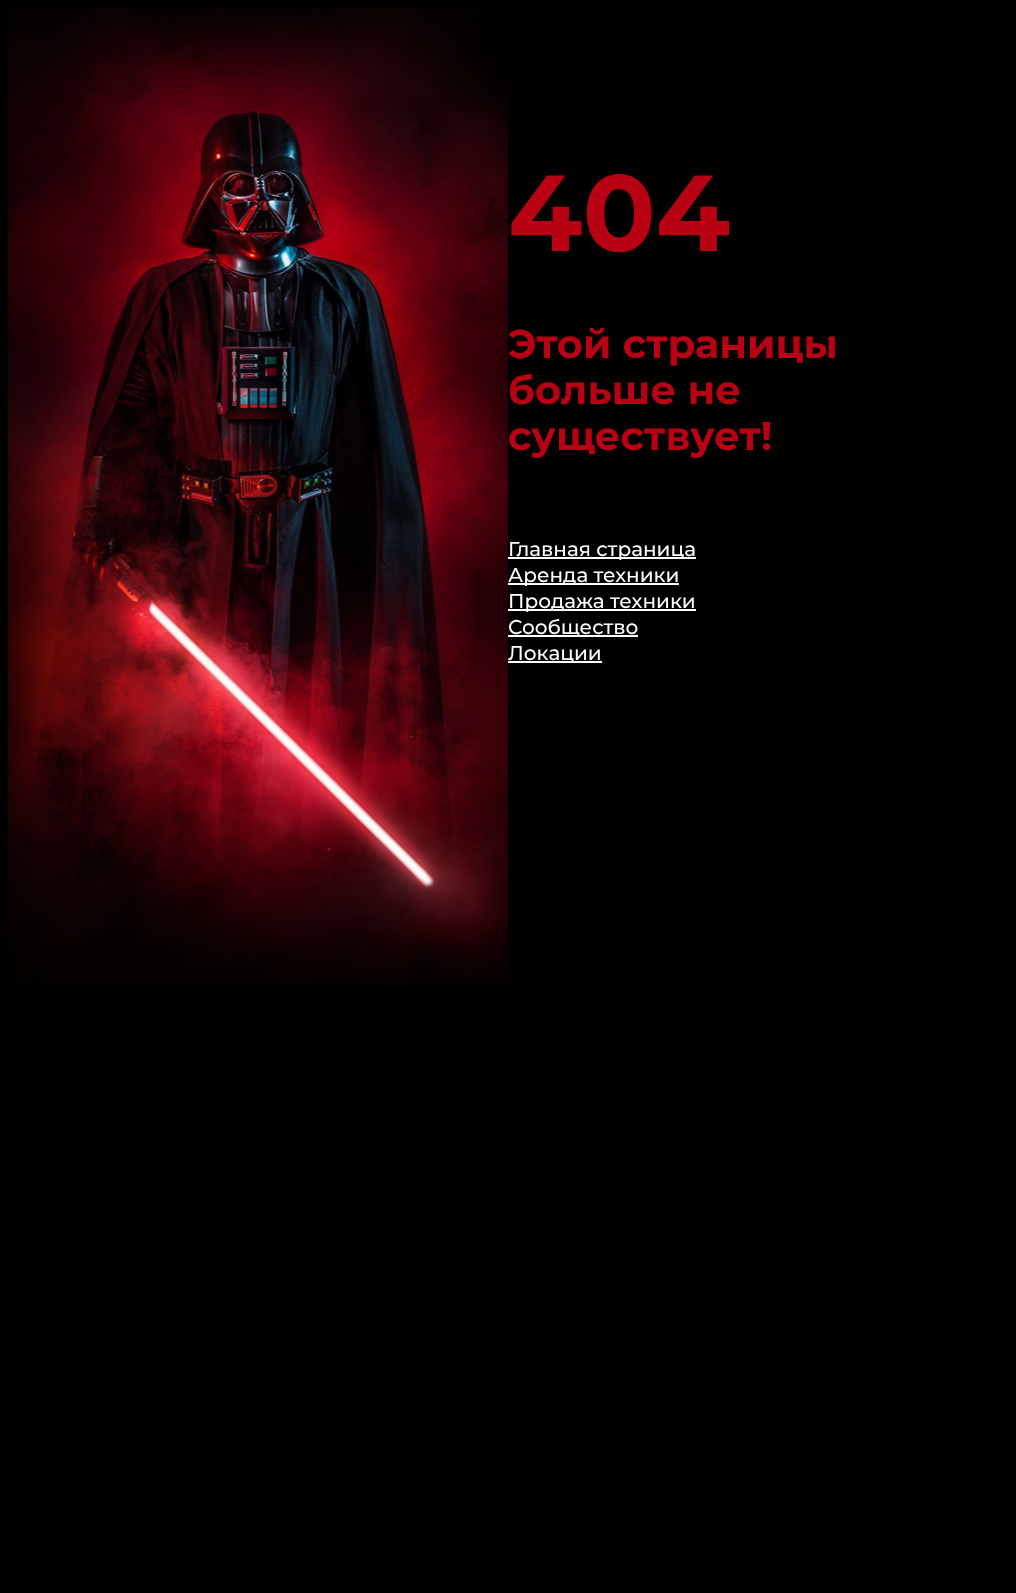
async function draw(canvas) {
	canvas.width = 1016;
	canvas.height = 1593;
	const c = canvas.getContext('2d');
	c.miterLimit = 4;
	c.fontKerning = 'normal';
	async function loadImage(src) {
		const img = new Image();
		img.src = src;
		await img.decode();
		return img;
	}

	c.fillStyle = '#000';
	c.fillRect(0, 0, 1016, 1593);
	c.drawImage(await loadImage('img1.png'), 8, 8, 500, 978);
	c.font = 'bold 108px Montserrat';
	c.fillStyle = '#b90114';
	c.fillText('404', 508, 251);
	c.font = 'bold 40px Montserrat';
	for (const [text, x, y] of [
		['Этой страницы', 508, 358],
		['больше не', 508, 404],
		['существует!', 508, 450],
	]) {
		c.fillText(text, x, y);
	}
	c.fillStyle = '#fff';
	c.fillRect(508, 557, 188, 2);
	c.font = '500 20px Montserrat';
	c.fillText('Главная страница', 508, 556);
	c.fillRect(508, 583, 171, 2);
	c.fillText('Аренда техники', 508, 582);
	c.fillRect(508, 609, 188, 2);
	c.fillText('Продажа техники', 508, 608);
	c.fillRect(508, 635, 130, 2);
	c.fillText('Сообщество', 508, 634);
	c.fillRect(508, 661, 94, 2);
	c.fillText('Локации', 508, 660);
}

draw(document.querySelector('canvas'));
